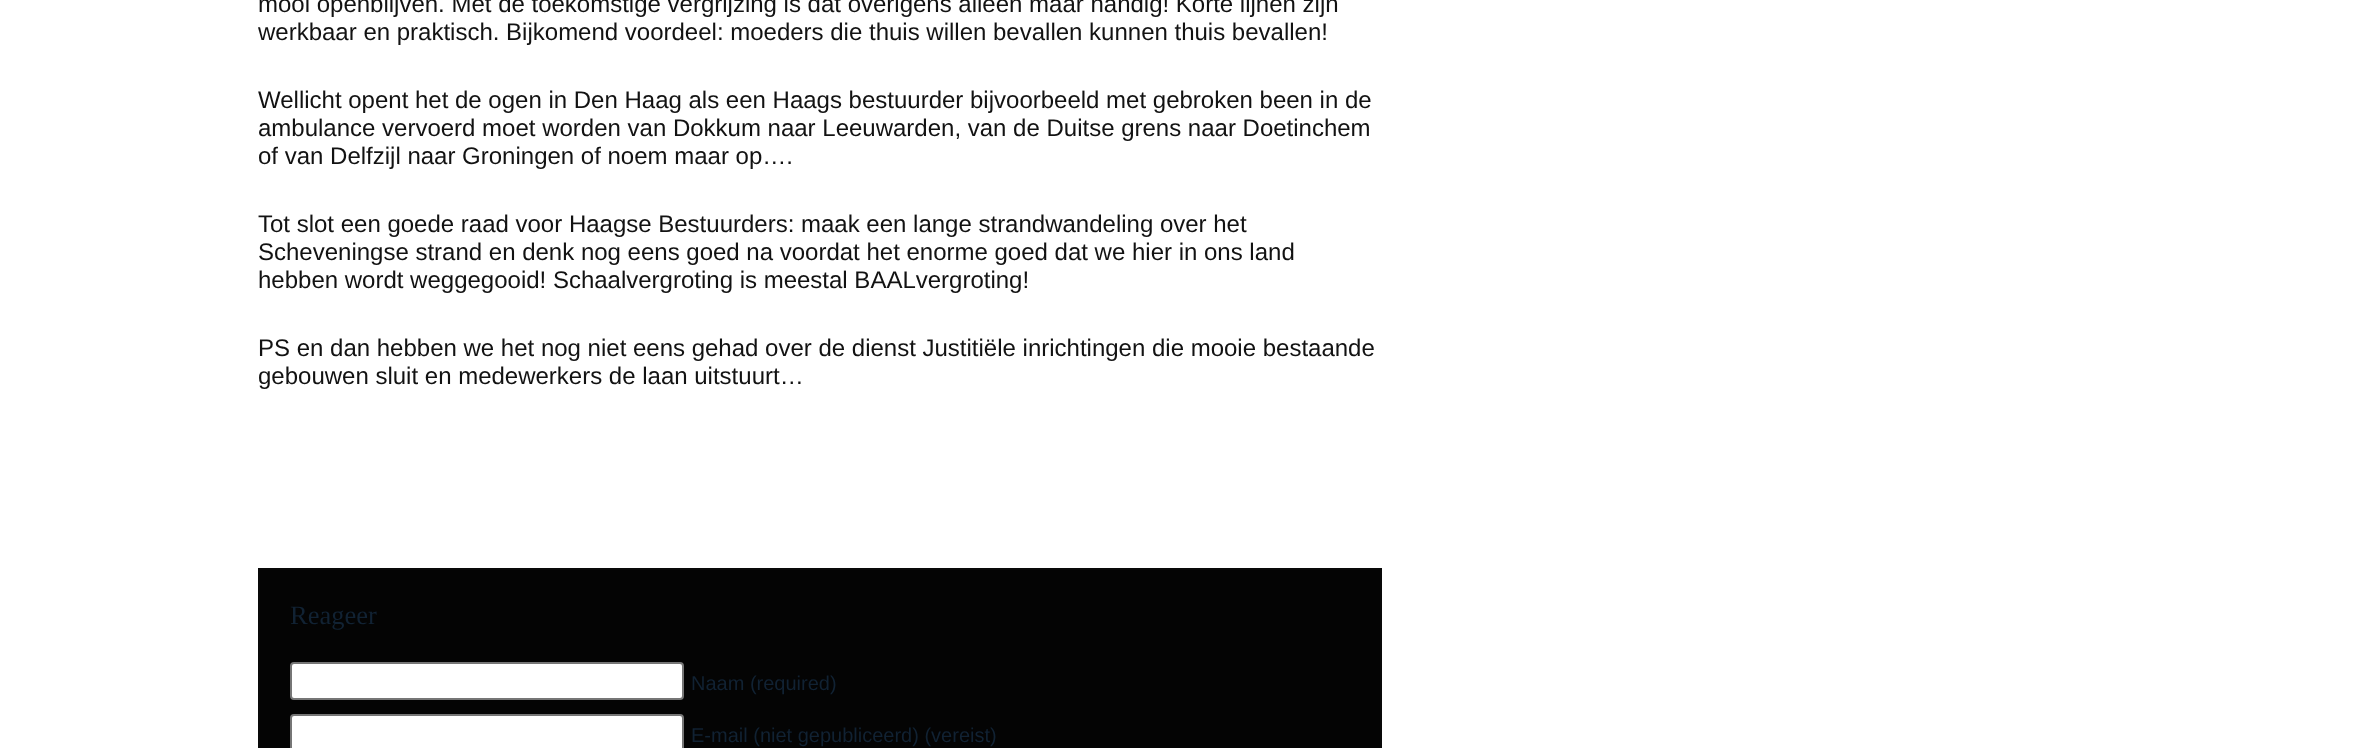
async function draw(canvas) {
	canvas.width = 2376;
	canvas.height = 748;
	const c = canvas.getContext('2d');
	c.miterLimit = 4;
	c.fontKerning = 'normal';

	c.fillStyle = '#fff';
	c.fillRect(0, 0, 2376, 748);
	c.font = '24px Liberation Sans';
	c.fillStyle = '#121212';
	for (const [text, x, y] of [
		['mooi openblijven. Met de toekomstige vergrijzing is dat overigens alleen maar handig! Korte lijnen zijn', 258, 12],
		['werkbaar en praktisch. Bijkomend voordeel: moeders die thuis willen bevallen kunnen thuis bevallen!', 258, 40],
		['Wellicht opent het de ogen in Den Haag als een Haags bestuurder bijvoorbeeld met gebroken been in de', 258, 108],
		['ambulance vervoerd moet worden van Dokkum naar Leeuwarden, van de Duitse grens naar Doetinchem', 258, 136],
		['of van Delfzijl naar Groningen of noem maar op….', 258, 164],
		['Tot slot een goede raad voor Haagse Bestuurders: maak een lange strandwandeling over het', 258, 232],
		['Scheveningse strand en denk nog eens goed na voordat het enorme goed dat we hier in ons land', 258, 260],
		['hebben wordt weggegooid! Schaalvergroting is meestal BAALvergroting!', 258, 288],
		['PS en dan hebben we het nog niet eens gehad over de dienst Justitiële inrichtingen die mooie bestaande', 258, 356],
		['gebouwen sluit en medewerkers de laan uitstuurt…', 258, 384],
	]) {
		c.fillText(text, x, y);
	}
	c.fillStyle = '#040404';
	c.beginPath();
	c.rect(259, 569, 1122, 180);
	c.fill();
	c.strokeStyle = '#090909';
	c.lineWidth = 2;
	c.stroke();
	c.font = '26.5px Liberation Serif';
	c.fillStyle = '#123';
	c.fillText('Reageer', 290, 624);
	c.fillStyle = '#fff';
	c.beginPath();
	c.roundRect(291, 663, 392, 36, 3);
	c.fill();
	c.strokeStyle = '#767676';
	c.stroke();
	c.font = '20px Liberation Sans';
	c.fillStyle = '#123';
	c.fillText('Naam (required)', 691, 690);
	c.fillStyle = '#fff';
	c.beginPath();
	c.roundRect(291, 715, 392, 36, 3);
	c.fill();
	c.stroke();
	c.fillStyle = '#123';
	c.fillText('E-mail (niet gepubliceerd) (vereist)', 691, 742);
}

draw(document.querySelector('canvas'));
